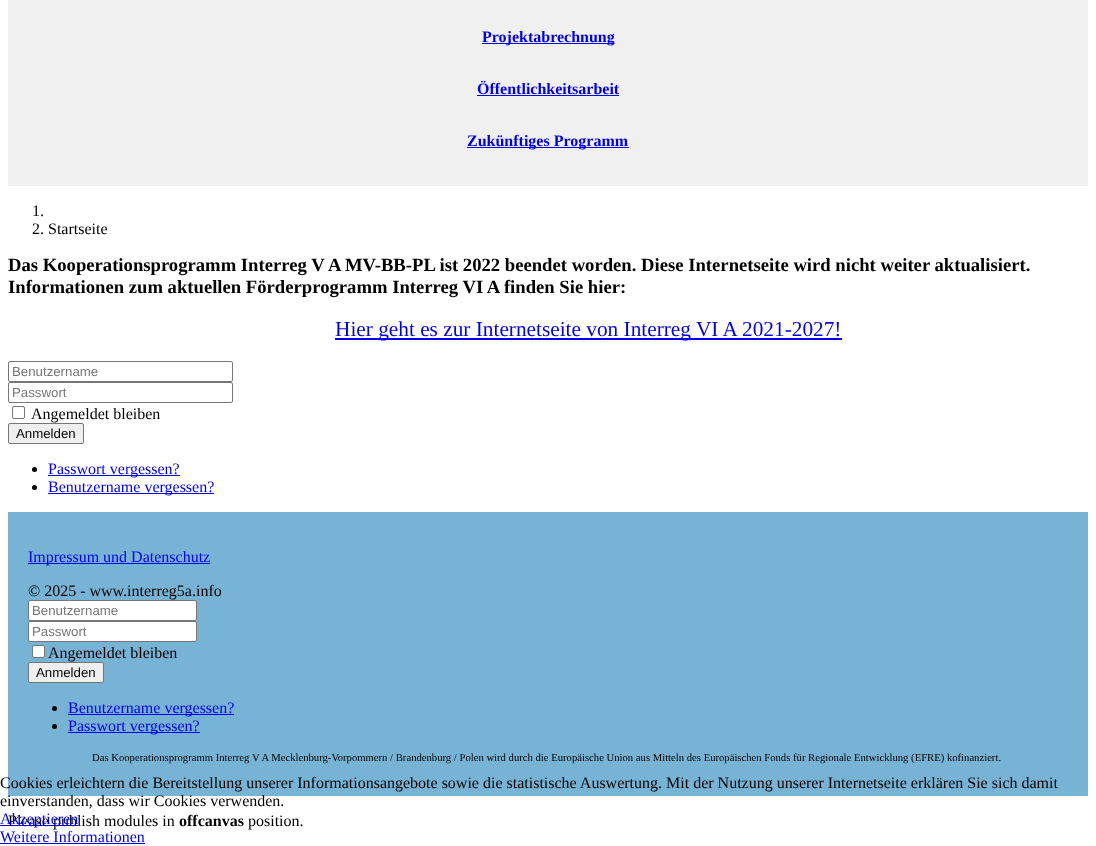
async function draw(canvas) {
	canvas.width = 1096;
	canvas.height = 846;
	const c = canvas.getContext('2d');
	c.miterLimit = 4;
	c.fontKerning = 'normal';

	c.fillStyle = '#fff';
	c.fillRect(0, 0, 1096, 846);
	c.fillStyle = '#f0f0f0';
	c.fillRect(8, 0, 1080, 186);
	c.fillStyle = '#00e';
	c.fillRect(482, 43, 132, 1);
	c.font = 'bold 16px Liberation Serif';
	c.fillText('Projektabrechnung', 482, 42);
	c.fillText('Öffentlichkeitsarbeit', 477, 94);
	c.fillRect(477, 95, 142, 1);
	c.fillRect(467, 147, 162, 1);
	c.fillText('Zukünftiges Programm', 467, 146);
	c.font = '16px Liberation Serif';
	c.fillStyle = '#000';
	c.fillText('1.', 32, 216);
	c.fillText('2. Startseite', 32, 234);
	c.font = 'bold 18.67px Liberation Serif';
	c.fillText('Das Kooperationsprogramm Interreg V A MV-BB-PL ist 2022 beendet worden. Diese Internetseite wird nicht weiter aktualisiert.', 8, 271);
	c.fillText('Informationen zum aktuellen Förderprogramm Interreg VI A finden Sie hier:', 8, 293);
	c.fillStyle = '#00e';
	c.fillRect(335, 338, 507, 2);
	c.font = '21.3px Liberation Serif';
	c.fillText('Hier geht es zur Internetseite von Interreg VI A 2021-2027!', 335, 336);
	c.beginPath();
	c.roundRect(8.5, 361.5, 224, 20, 1.5);
	c.strokeStyle = '#767676';
	c.stroke();
	c.font = '13.25px Liberation Sans';
	c.fillStyle = '#757575';
	c.fillText('Benutzername', 12, 376);
	c.beginPath();
	c.roundRect(8.5, 382.5, 224, 20, 1.5);
	c.stroke();
	c.fillText('Passwort', 12, 397);
	c.beginPath();
	c.roundRect(12.5, 406.5, 12, 12, 1.5);
	c.stroke();
	c.font = '16px Liberation Serif';
	c.fillStyle = '#000';
	c.fillText('Angemeldet bleiben', 31, 419);
	c.fillStyle = '#efefef';
	c.beginPath();
	c.roundRect(8.5, 423.5, 75, 20, 1.5);
	c.fill();
	c.stroke();
	c.font = '13.25px Liberation Sans';
	c.fillStyle = '#000';
	c.fillText('Anmelden', 16, 438);
	c.beginPath();
	c.arc(34.5, 469.5, 2.5, 0, 2 * Math.PI);
	c.fill();
	c.fillStyle = '#00e';
	c.fillRect(48, 475, 132, 1);
	c.font = '16px Liberation Serif';
	c.fillText('Passwort vergessen?', 48, 474);
	c.fillStyle = '#000';
	c.beginPath();
	c.arc(34.5, 487.5, 2.5, 0, 2 * Math.PI);
	c.fill();
	c.fillStyle = '#00e';
	c.fillRect(48, 493, 166, 1);
	c.fillText('Benutzername vergessen?', 48, 492);
	c.fillStyle = '#77b3d4';
	c.fillRect(8, 512, 1080, 284);
	c.fillStyle = '#00e';
	c.fillRect(28, 563, 182, 1);
	c.fillText('Impressum und Datenschutz', 28, 562);
	c.fillStyle = '#000';
	c.fillText('© 2025 - www.interreg5a.info', 28, 596);
	c.fillStyle = '#fff';
	c.beginPath();
	c.roundRect(28.5, 600.5, 168, 20, 1.5);
	c.fill();
	c.stroke();
	c.font = '13.25px Liberation Sans';
	c.fillStyle = '#757575';
	c.fillText('Benutzername', 32, 615);
	c.fillStyle = '#fff';
	c.beginPath();
	c.roundRect(28.5, 621.5, 168, 20, 1.5);
	c.fill();
	c.stroke();
	c.fillStyle = '#757575';
	c.fillText('Passwort', 32, 636);
	c.fillStyle = '#fff';
	c.beginPath();
	c.roundRect(32.5, 645.5, 12, 12, 1.5);
	c.fill();
	c.stroke();
	c.font = '16px Liberation Serif';
	c.fillStyle = '#000';
	c.fillText('Angemeldet bleiben', 48, 658);
	c.fillStyle = '#efefef';
	c.beginPath();
	c.roundRect(28.5, 662.5, 75, 20, 1.5);
	c.fill();
	c.stroke();
	c.font = '13.25px Liberation Sans';
	c.fillStyle = '#000';
	c.fillText('Anmelden', 36, 677);
	c.beginPath();
	c.arc(54.5, 708.5, 2.5, 0, 2 * Math.PI);
	c.fill();
	c.fillStyle = '#00e';
	c.fillRect(68, 714, 166, 1);
	c.font = '16px Liberation Serif';
	c.fillText('Benutzername vergessen?', 68, 713);
	c.fillStyle = '#000';
	c.beginPath();
	c.arc(54.5, 726.5, 2.5, 0, 2 * Math.PI);
	c.fill();
	c.fillStyle = '#00e';
	c.fillRect(68, 732, 132, 1);
	c.fillText('Passwort vergessen?', 68, 731);
	c.font = '10.67px Liberation Serif';
	c.fillStyle = '#000';
	c.fillText('Das Kooperationsprogramm Interreg V A Mecklenburg-Vorpommern / Brandenburg / Polen wird durch die Europäische Union aus Mitteln des Europäischen Fonds für Regionale Entwicklung (EFRE) kofinanziert.', 92, 761);
	c.font = '16px Liberation Serif';
	for (const [text, x, y] of [
		['Cookies erleichtern die Bereitstellung unserer Informationsangebote sowie die statistische Auswertung. Mit der Nutzung unserer Internetseite erklären Sie sich damit', 0, 788],
		['einverstanden, dass wir Cookies verwenden.', 0, 806],
		['Please publish modules in', 8, 826],
	]) {
		c.fillText(text, x, y);
	}
	c.fillStyle = '#00e';
	c.fillRect(0, 825, 78, 1);
	c.fillText('Akzeptieren', 0, 824);
	c.fillText('Weitere Informationen', 0, 842);
	c.fillRect(0, 843, 145, 1);
	c.font = 'bold 16px Liberation Serif';
	c.fillStyle = '#000';
	c.fillText('offcanvas', 179, 826);
	c.font = '16px Liberation Serif';
	c.fillText('position.', 248, 826);
}

draw(document.querySelector('canvas'));
